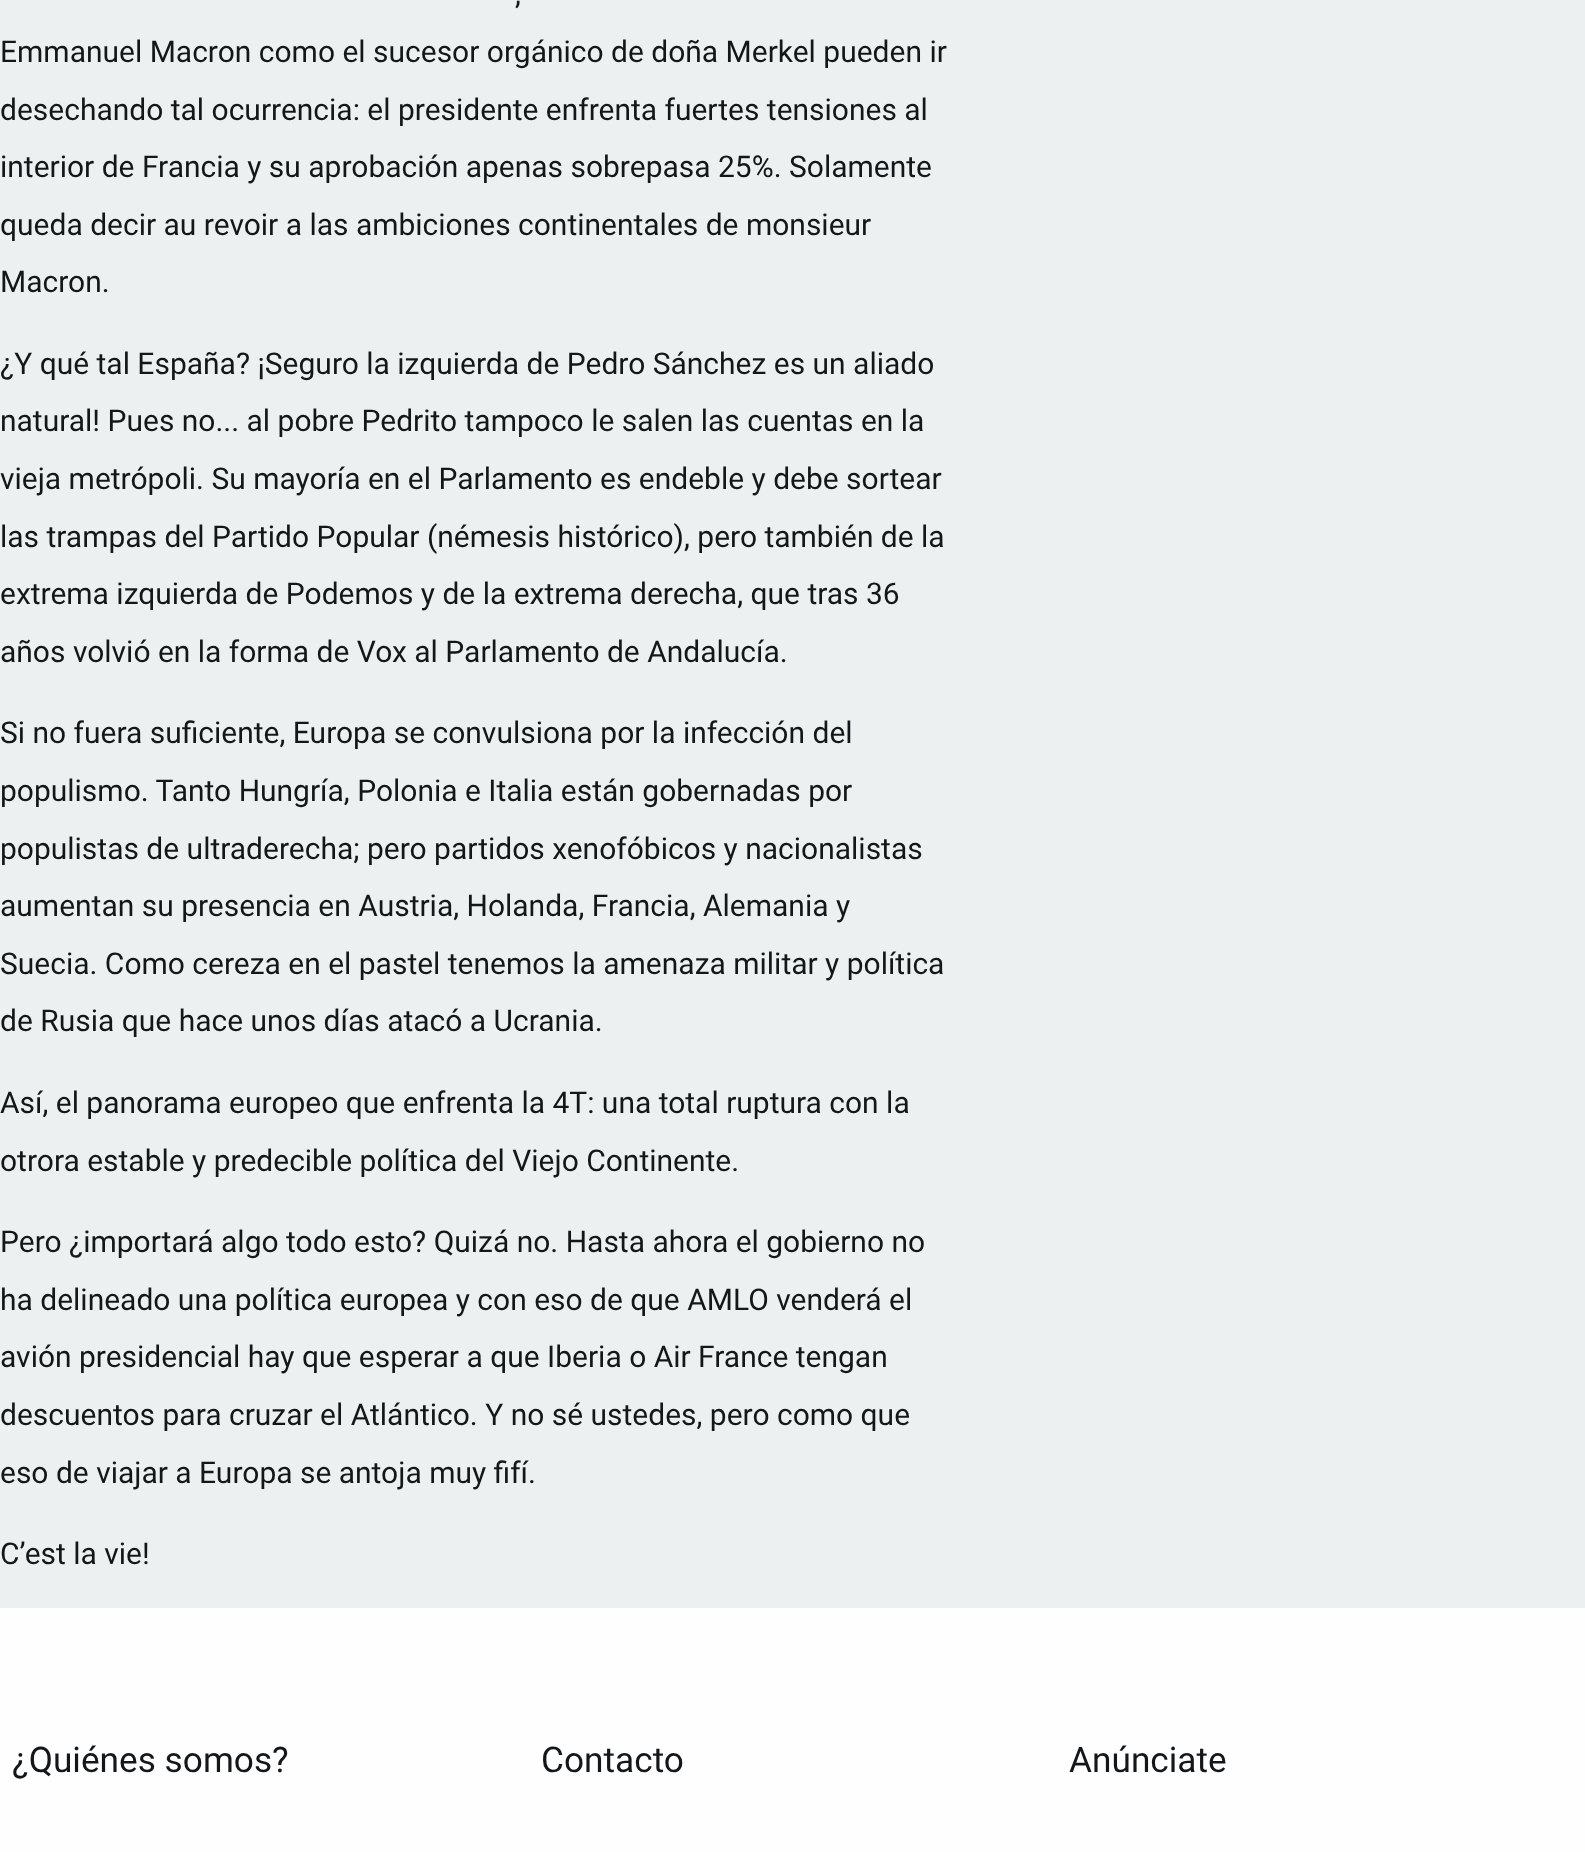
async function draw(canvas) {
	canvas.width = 1585;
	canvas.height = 1852;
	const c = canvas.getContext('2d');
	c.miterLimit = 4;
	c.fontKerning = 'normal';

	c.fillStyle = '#ecf0f1';
	c.fillRect(0, 0, 1585, 1852);
	c.font = '30px Roboto';
	c.fillStyle = '#14171a';
	for (const [text, x, y] of [
		[',', 515, 4],
		['Emmanuel Macron como el sucesor orgánico de doña Merkel pueden ir', 0, 62],
		['desechando tal ocurrencia: el presidente enfrenta fuertes tensiones al', 0, 120],
		['interior de Francia y su aprobación apenas sobrepasa 25%. Solamente', 0, 177],
		['queda decir au revoir a las ambiciones continentales de monsieur', 0, 235],
		['Macron.', 0, 292],
		['¿Y qué tal España? ¡Seguro la izquierda de Pedro Sánchez es un aliado', 0, 374],
		['natural! Pues no... al pobre Pedrito tampoco le salen las cuentas en la', 0, 431],
		['vieja metrópoli. Su mayoría en el Parlamento es endeble y debe sortear', 0, 489],
		['las trampas del Partido Popular (némesis histórico), pero también de la', 0, 547],
		['extrema izquierda de Podemos y de la extrema derecha, que tras 36', 0, 604],
		['años volvió en la forma de Vox al Parlamento de Andalucía.', 0, 662],
		['Si no fuera suficiente, Europa se convulsiona por la infección del', 0, 743],
		['populismo. Tanto Hungría, Polonia e Italia están gobernadas por', 0, 801],
		['populistas de ultraderecha; pero partidos xenofóbicos y nacionalistas', 0, 859],
		['aumentan su presencia en Austria, Holanda, Francia, Alemania y', 0, 916],
		['Suecia. Como cereza en el pastel tenemos la amenaza militar y política', 0, 974],
		['de Rusia que hace unos días atacó a Ucrania.', 0, 1031],
		['Así, el panorama europeo que enfrenta la 4T: una total ruptura con la', 0, 1113],
		['otrora estable y predecible política del Viejo Continente.', 0, 1171],
		['Pero ¿importará algo todo esto? Quizá no. Hasta ahora el gobierno no', 0, 1252],
		['ha delineado una política europea y con eso de que AMLO venderá el', 0, 1310],
		['avión presidencial hay que esperar a que Iberia o Air France tengan', 0, 1367],
		['descuentos para cruzar el Atlántico. Y no sé ustedes, pero como que', 0, 1425],
		['eso de viajar a Europa se antoja muy fifí.', 0, 1483],
		['C’est la vie!', 0, 1564],
	]) {
		c.fillText(text, x, y);
	}
	c.fillStyle = '#fefefe';
	c.fillRect(0, 1608, 1585, 244);
	c.font = '35.25px Roboto';
	c.fillStyle = '#14171a';
	for (const [text, x, y] of [
		['¿Quiénes somos?', 12, 1772],
		['Contacto', 541, 1772],
		['Anúnciate', 1069, 1772],
	]) {
		c.fillText(text, x, y);
	}
}

draw(document.querySelector('canvas'));
